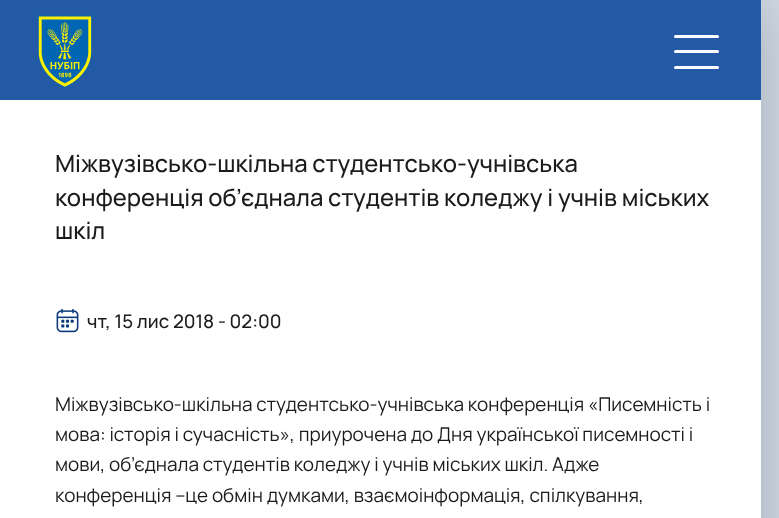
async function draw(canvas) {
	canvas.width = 779;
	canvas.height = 518;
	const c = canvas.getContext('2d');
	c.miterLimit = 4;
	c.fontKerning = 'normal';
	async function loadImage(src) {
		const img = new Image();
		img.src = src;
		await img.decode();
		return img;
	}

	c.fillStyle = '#d0d9e5';
	c.fillRect(0, 0, 779, 518);
	c.fillStyle = '#00000033';
	c.filter = 'blur(31px)';
	c.beginPath();
	c.rect(0, 0, 761, 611);
	c.fill();
	c.filter = 'none';
	c.fillStyle = '#235aa6';
	c.fillRect(0, 0, 761, 100);
	c.drawImage(await loadImage('img1.png'), 38, 15, 54, 73);
	c.fillStyle = '#fff';
	c.beginPath();
	c.roundRect(674, 35, 45, 3, 1.5);
	c.fill();
	c.beginPath();
	c.roundRect(674, 50, 45, 3, 1.5);
	c.fill();
	c.beginPath();
	c.roundRect(674, 66, 45, 3, 1.5);
	c.fill();
	c.fillRect(0, 100, 761, 418);
	c.font = '500 23.75px Manrope';
	c.fillStyle = '#1b1b1b';
	for (const [text, x, y] of [
		['Міжвузівсько-шкільна студентсько-учнівська', 55, 172],
		['конференція об’єднала студентів коледжу і учнів міських', 55, 206],
		['шкіл', 55, 239],
	]) {
		c.fillText(text, x, y);
	}
	c.drawImage(await loadImage('img2.png'), 56, 309, 23, 24);
	c.font = '500 18.75px Manrope';
	c.fillText('чт, 15 лис 2018 - 02:00', 87, 328);
	c.font = '18.95px Manrope';
	for (const [text, x, y] of [
		['Міжвузівсько-шкільна студентсько-учнівська конференція «Писемність і', 55, 411],
		['мова: історія і сучасність», приурочена до Дня української писемності і', 55, 441],
		['мови, об’єднала студентів коледжу і учнів міських шкіл. Адже', 55, 471],
		['конференція –це обмін думками, взаємоінформація, спілкування,', 55, 502],
	]) {
		c.fillText(text, x, y);
	}
}

draw(document.querySelector('canvas'));
